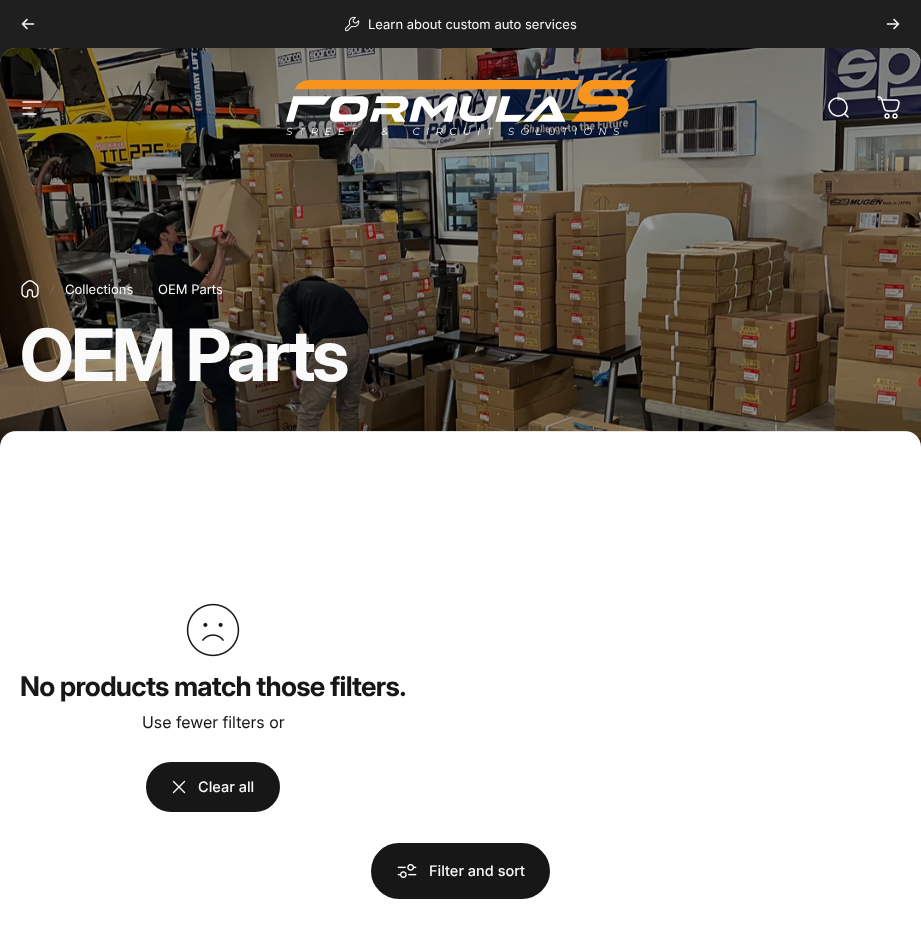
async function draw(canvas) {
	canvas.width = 921;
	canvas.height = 931;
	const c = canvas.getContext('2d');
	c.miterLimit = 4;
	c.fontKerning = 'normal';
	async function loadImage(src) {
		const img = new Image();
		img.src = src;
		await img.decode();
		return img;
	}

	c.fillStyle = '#1f1f1f';
	c.fillRect(0, 0, 921, 931);
	c.beginPath();
	c.moveTo(27, 19.5);
	c.lineTo(22.5, 24);
	c.moveTo(22.5, 24);
	c.lineTo(27, 28.5);
	c.moveTo(22.5, 24);
	c.lineTo(33.5, 24);
	c.strokeStyle = '#fafafa';
	c.lineWidth = 1.6;
	c.lineCap = 'round';
	c.lineJoin = 'round';
	c.stroke();
	c.drawImage(await loadImage('img1.png'), 344, 16, 16, 16);
	c.font = '13px Inter';
	c.fillStyle = '#fafafa';
	c.fillText('Learn about custom auto services', 368, 29);
	c.beginPath();
	c.moveTo(887.5, 24);
	c.lineTo(898.5, 24);
	c.moveTo(898.5, 24);
	c.lineTo(894, 19.5);
	c.moveTo(898.5, 24);
	c.lineTo(894, 28.5);
	c.stroke();
	c.beginPath();
	c.roundRect(0, 48, 921, 399, [16, 16, 0, 0]);
	c.fill();
	c.drawImage(await loadImage('img4.png'), 0, 48, 921, 399);
	c.fillStyle = '#00000066';
	c.beginPath();
	c.roundRect(0, 48, 921, 399, [16, 16, 0, 0]);
	c.fill();
	c.beginPath();
	c.moveTo(23, 102);
	c.lineTo(41, 102);
	c.moveTo(23, 108);
	c.lineTo(31, 108);
	c.moveTo(23, 114);
	c.lineTo(36, 114);
	c.strokeStyle = '#fff';
	c.lineWidth = 1.5;
	c.lineJoin = 'miter';
	c.stroke();
	c.drawImage(await loadImage('img2.png'), 286, 80, 350, 55);
	c.beginPath();
	c.moveTo(848, 117);
	c.lineTo(844.5, 113.5);
	c.moveTo(844.5, 113.5);
	c.bezierCurveTo(852.5, 105, 840, 92.5, 831.5, 100.5);
	c.bezierCurveTo(823.5, 109, 836, 121.5, 844.5, 113.5);
	c.closePath();
	c.stroke();
	c.drawImage(await loadImage('img3.png'), 877, 96, 23, 23);
	c.drawImage(await loadImage('img5.png'), 21, 280, 18, 18);
	c.fillStyle = '#ffffff1a';
	c.beginPath();
	c.moveTo(54.5, 283.5);
	c.lineTo(55.5, 284);
	c.lineTo(50.5, 295);
	c.lineTo(49.5, 294.5);
	c.closePath();
	c.fill();
	c.fillStyle = '#fafafa';
	c.fillText('Collections', 65, 294);
	c.fillStyle = '#ffffff1a';
	c.beginPath();
	c.moveTo(148, 283.5);
	c.lineTo(149, 284);
	c.lineTo(144, 295);
	c.lineTo(143, 294.5);
	c.closePath();
	c.fill();
	c.fillStyle = '#fafafa';
	c.fillText('OEM Parts', 158, 294);
	c.letterSpacing = '-2.9px';
	c.font = 'bold 72px "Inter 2"';
	c.fillText('OEM Parts', 20, 381);
	c.fillStyle = '#fff';
	c.beginPath();
	c.moveTo(16, 431);
	c.lineTo(905, 431);
	c.bezierCurveTo(914, 431, 921, 438, 921, 447);
	c.lineTo(921, 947);
	c.lineTo(0, 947);
	c.lineTo(0, 447);
	c.bezierCurveTo(0, 438, 7, 431, 16, 431);
	c.closePath();
	c.fill();
	c.fillStyle = '#1717171a';
	c.fillRect(10, 431, 911, 1);
	c.drawImage(await loadImage('img6.png'), 186, 603, 54, 54);
	c.letterSpacing = '-0.7px';
	c.font = 'bold 27.1px Inter';
	c.fillStyle = '#171717';
	c.fillText('No products match those filters.', 20, 696);
	c.letterSpacing = '0px';
	c.font = '16px "Inter 2"';
	c.fillText('Use fewer filters or', 142, 728);
	c.beginPath();
	c.roundRect(147, 763, 132, 48, 24);
	c.fill();
	c.strokeStyle = '#171717';
	c.lineWidth = 2;
	c.stroke();
	c.beginPath();
	c.moveTo(173.5, 792.5);
	c.lineTo(184.5, 781.5);
	c.moveTo(173.5, 781.5);
	c.lineTo(184.5, 792.5);
	c.strokeStyle = '#fff';
	c.lineWidth = 1.4;
	c.lineJoin = 'round';
	c.stroke();
	c.font = '500 14.5px Inter';
	c.fillStyle = '#fafafa';
	c.fillText('Clear all', 198, 792);
	c.fillStyle = '#171717';
	c.beginPath();
	c.roundRect(372, 844, 177, 54, 27);
	c.fill();
	c.strokeStyle = '#171717';
	c.lineWidth = 2;
	c.lineJoin = 'miter';
	c.stroke();
	c.drawImage(await loadImage('img7.png'), 397, 864, 20, 14);
	c.fillStyle = '#fafafa';
	c.fillText('Filter and sort', 429, 876);
}

draw(document.querySelector('canvas'));
